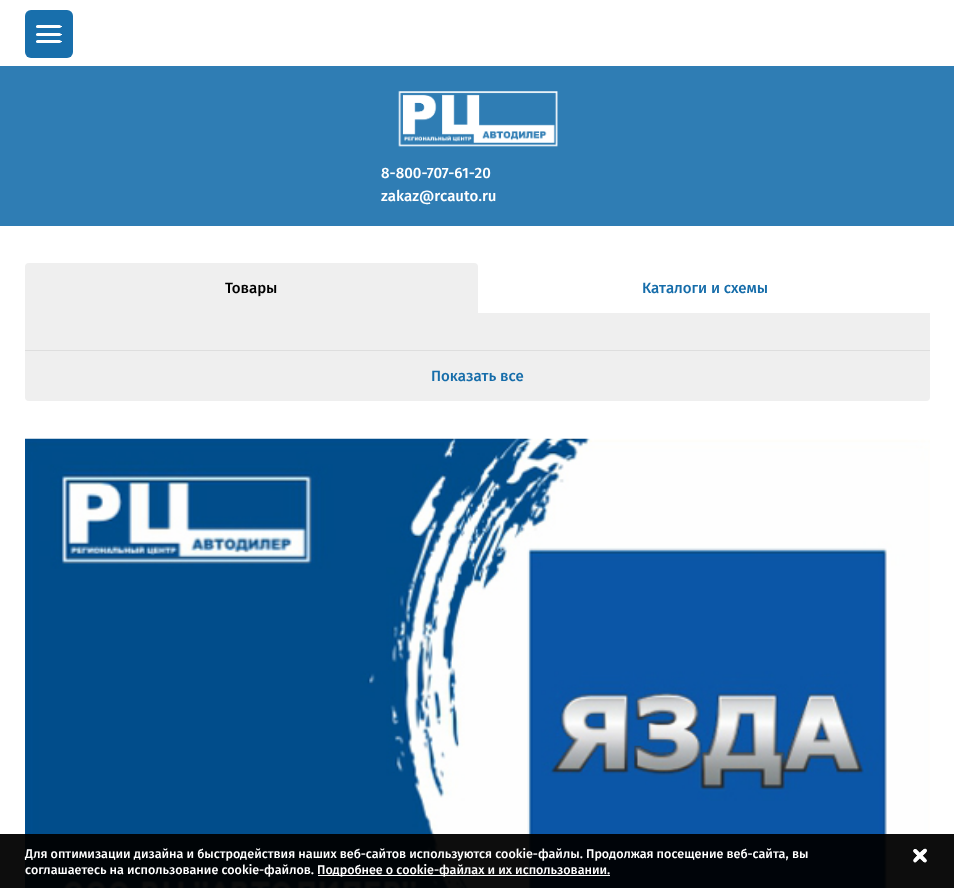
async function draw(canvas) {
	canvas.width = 954;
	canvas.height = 888;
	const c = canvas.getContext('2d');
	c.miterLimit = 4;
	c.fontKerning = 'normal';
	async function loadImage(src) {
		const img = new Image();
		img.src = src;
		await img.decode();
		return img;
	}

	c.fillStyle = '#fff';
	c.fillRect(0, 0, 954, 888);
	c.fillStyle = '#186fac';
	c.beginPath();
	c.roundRect(25, 10, 48, 48, 6);
	c.fill();
	c.fillStyle = '#fff';
	c.beginPath();
	c.roundRect(36, 25, 25, 3, 1.5);
	c.fill();
	c.fillRect(59, 26, 3, 1);
	c.fillRect(36, 26, 3, 1);
	c.beginPath();
	c.roundRect(36, 33, 25, 3, 1.5);
	c.fill();
	c.fillRect(59, 34, 3, 1);
	c.fillRect(36, 34, 3, 1);
	c.beginPath();
	c.roundRect(36, 40, 25, 3, 1.5);
	c.fill();
	for (const [x, y, w, h, color] of [
		[59, 41, 3, 1, '#fff'],
		[36, 41, 3, 1, '#fff'],
		[0, 66, 954, 160, '#2f7db4'],
	]) {
		c.fillStyle = color;
		c.fillRect(x, y, w, h);
	}
	c.drawImage(await loadImage('img1.png'), 398, 91, 160, 56);
	c.font = '500 15px Fira Sans';
	c.fillStyle = '#fff';
	c.fillText('8-800-707-61-20', 381, 178);
	c.fillText('zakaz@rcauto.ru', 381, 201);
	c.fillStyle = '#efefef';
	c.beginPath();
	c.roundRect(25, 263, 453, 50, [4, 4, 0, 0]);
	c.fill();
	c.fillStyle = '#000';
	c.fillText('Товары', 225, 293);
	c.fillStyle = '#166daa';
	c.fillText('Каталоги и схемы', 642, 293);
	c.fillStyle = '#efefef';
	c.fillRect(25, 313, 905, 37);
	c.beginPath();
	c.roundRect(25, 350, 905, 51, [0, 0, 4, 4]);
	c.fill();
	c.fillStyle = '#dedede';
	c.fillRect(25, 350, 905, 1);
	c.fillStyle = '#166daa';
	c.fillText('Показать все', 431, 381);
	c.drawImage(await loadImage('img2.png'), 25, 438, 905, 450);
	c.fillStyle = '#000000f2';
	c.fillRect(0, 834, 954, 54);
	c.font = '500 12.5px Fira Sans';
	c.fillStyle = '#fff';
	c.fillText('Для оптимизации дизайна и быстродействия наших веб-сайтов используются cookie-файлы. Продолжая посещение веб-сайта, вы', 25, 858);
	c.beginPath();
	c.moveTo(914, 859);
	c.lineTo(922, 851);
	c.bezierCurveTo(923, 850, 925, 847.5, 926.5, 849.5);
	c.bezierCurveTo(927, 850, 927, 851, 926.5, 851.5);
	c.lineTo(916, 862);
	c.bezierCurveTo(914.5, 863.5, 912.5, 860.5, 914, 859);
	c.closePath();
	c.fill();
	c.beginPath();
	c.moveTo(914.5, 859.5);
	c.bezierCurveTo(915.5, 858, 923.5, 849.5, 925, 849.5);
	c.lineTo(926, 850);
	c.bezierCurveTo(927, 851.5, 923.5, 854, 922.5, 855);
	c.lineTo(915.5, 861.5);
	c.bezierCurveTo(914.5, 862, 913.5, 860.5, 914.5, 859.5);
	c.closePath();
	c.strokeStyle = '#fff';
	c.lineWidth = 1.3;
	c.stroke();
	c.beginPath();
	c.moveTo(916.5, 849.5);
	c.lineTo(924.5, 857.5);
	c.bezierCurveTo(925.5, 858.5, 928, 860.5, 926, 862);
	c.bezierCurveTo(925.5, 862.5, 924.5, 862.5, 924, 862);
	c.lineTo(913.5, 852);
	c.bezierCurveTo(912.5, 850, 915, 848, 916.5, 849.5);
	c.closePath();
	c.fill();
	c.beginPath();
	c.moveTo(916, 850);
	c.bezierCurveTo(917.5, 851.5, 926, 859.5, 926, 860.5);
	c.lineTo(925.5, 861.5);
	c.bezierCurveTo(924, 862.5, 921.5, 859, 920.5, 858);
	c.lineTo(914, 851);
	c.bezierCurveTo(913.5, 850, 915, 849, 916, 850);
	c.closePath();
	c.stroke();
	c.fillText('соглашаетесь на использование cookie-файлов.', 25, 874);
	c.fillRect(318, 875, 292, 1);
	c.fillText('Подробнее о cookie-файлах и их использовании.', 317, 874);
}

draw(document.querySelector('canvas'));
